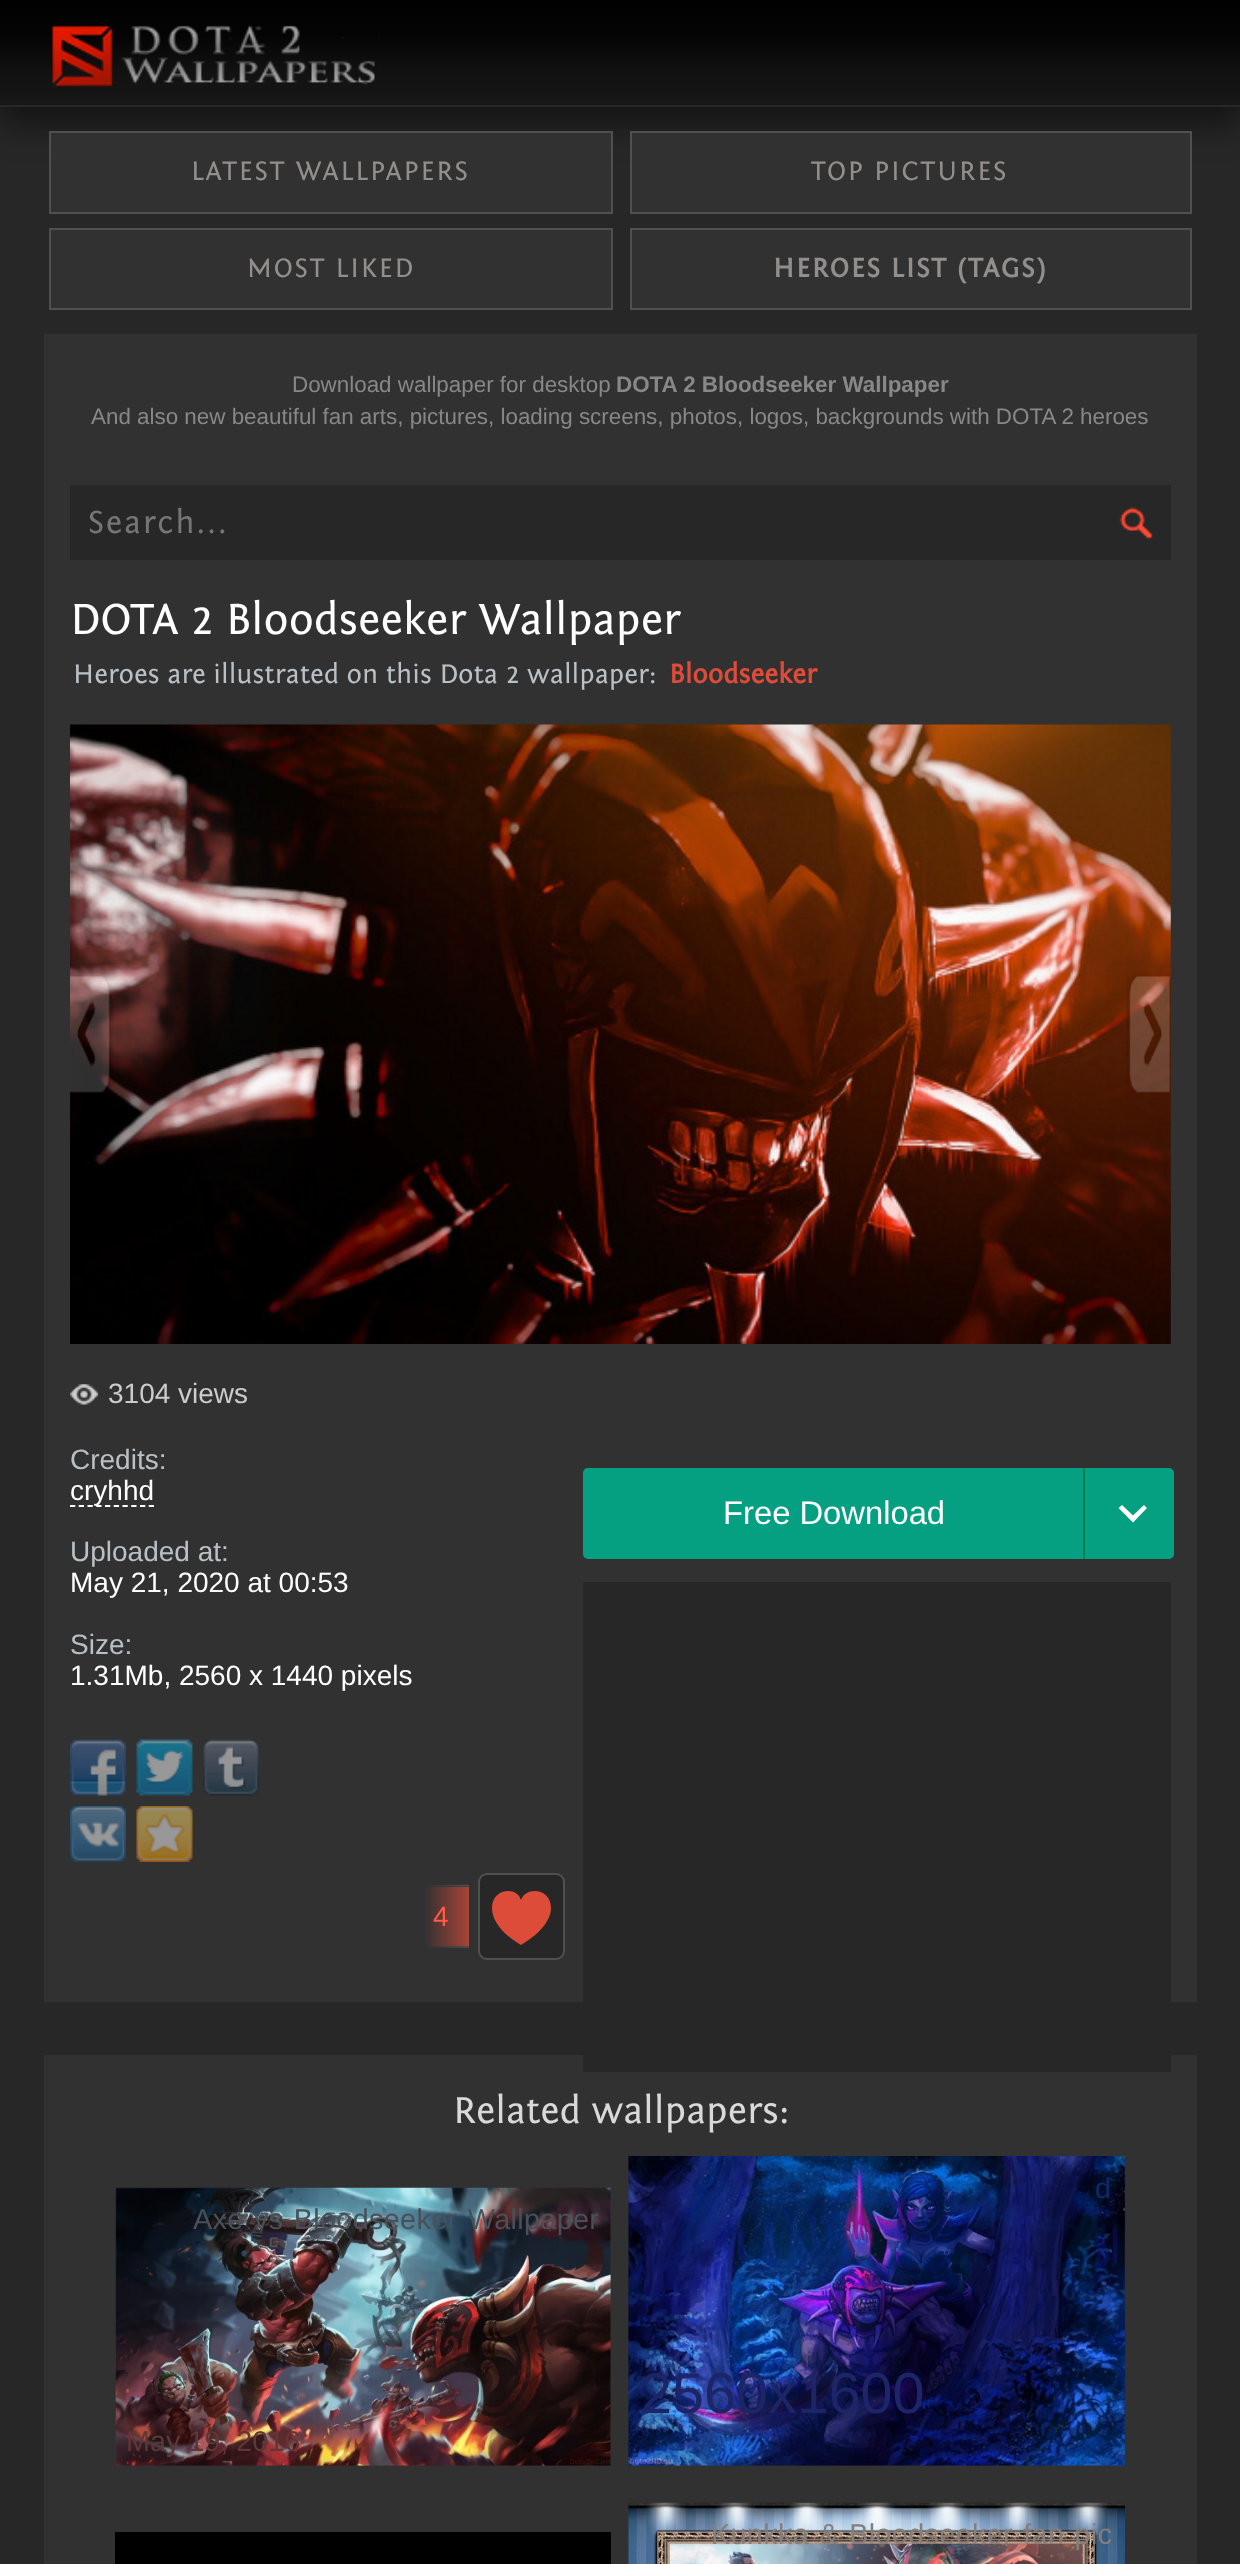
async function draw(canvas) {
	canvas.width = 1240;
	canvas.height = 2564;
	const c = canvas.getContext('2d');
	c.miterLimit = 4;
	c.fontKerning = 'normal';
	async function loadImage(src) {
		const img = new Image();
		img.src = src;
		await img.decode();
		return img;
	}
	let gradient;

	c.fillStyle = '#272727';
	c.fillRect(0, 0, 1240, 2564);
	c.fillStyle = '#131313';
	c.filter = 'blur(16px)';
	c.beginPath();
	c.rect(0, 18, 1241, 106);
	c.fill();
	c.filter = 'none';
	gradient = c.createLinearGradient(620, 105, 620, 0);
	gradient.addColorStop(0, '#171717');
	gradient.addColorStop(0.33, '#111');
	gradient.addColorStop(0.67, '#040404');
	gradient.addColorStop(1, '#010101');
	c.fillStyle = gradient;
	c.fillRect(0, 0, 1240, 105);
	c.fillStyle = '#292827';
	c.fillRect(0, 105, 1240, 2);
	c.drawImage(await loadImage('img1.png'), 52, 25, 329, 62);
	c.fillStyle = '#313131';
	c.beginPath();
	c.rect(50, 132, 562, 81);
	c.fill();
	c.strokeStyle = '#505050';
	c.lineWidth = 2;
	c.stroke();
	c.letterSpacing = '1.75px';
	c.font = '28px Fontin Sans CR';
	c.fillStyle = '#918e8c';
	c.fillText('LATEST WALLPAPERS', 191, 180);
	c.fillStyle = '#313131';
	c.beginPath();
	c.rect(631, 132, 560, 81);
	c.fill();
	c.stroke();
	c.fillStyle = '#918e8c';
	c.fillText('TOP PICTURES', 811, 180);
	c.fillStyle = '#313131';
	c.beginPath();
	c.rect(50, 229, 562, 80);
	c.fill();
	c.stroke();
	c.fillStyle = '#918e8c';
	c.fillText('MOST LIKED', 247, 277);
	c.fillStyle = '#313131';
	c.beginPath();
	c.rect(631, 229, 560, 80);
	c.fill();
	c.stroke();
	c.font = 'bold 28px Fontin Sans CR';
	c.fillStyle = '#918e8c';
	c.fillText('HEROES LIST (TAGS)', 773, 277);
	c.fillStyle = '#313131';
	c.fillRect(44, 334, 1153, 2230);
	c.letterSpacing = '0px';
	c.font = '22.4px Liberation Sans';
	c.fillStyle = '#888';
	c.fillText('Download wallpaper for desktop', 292, 392);
	c.font = 'bold 22.4px Liberation Sans';
	c.fillText('DOTA 2 Bloodseeker Wallpaper', 616, 392);
	c.font = '22.4px Liberation Sans';
	c.fillText('And also new beautiful fan arts, pictures, loading screens, photos, logos, backgrounds with DOTA 2 heroes', 91, 424);
	c.fillStyle = '#272727';
	c.fillRect(70, 485, 1101, 75);
	c.letterSpacing = '1.75px';
	c.font = '33.5px Fontin Sans CR';
	c.fillStyle = '#757575';
	c.fillText('Search...', 88, 533);
	c.drawImage(await loadImage('img2.png'), 1119, 507, 35, 33);
	c.letterSpacing = '0px';
	c.font = '45.5px Fontin Sans CR';
	c.fillStyle = '#fff';
	c.fillText('DOTA 2 Bloodseeker Wallpaper', 70, 634);
	c.font = '28px Fontin Sans CR';
	c.fillStyle = '#b9c1c7';
	c.fillText('Heroes are illustrated on this Dota 2 wallpaper:', 73, 683);
	c.font = 'bold 28px Fontin Sans CR';
	c.fillStyle = '#dd4b39';
	c.fillText('Bloodseeker', 669, 683);
	c.drawImage(await loadImage('img3.png'), 70, 724, 1101, 620);
	c.drawImage(await loadImage('img4.png'), 70, 972, 43, 121);
	c.drawImage(await loadImage('img5.png'), 1126, 972, 44, 121);
	c.drawImage(await loadImage('img6.png'), 70, 1384, 28, 21);
	c.font = '28px Liberation Sans';
	c.fillStyle = '#ccc';
	c.fillText('3104 views', 108, 1403);
	c.fillStyle = '#b9c1c7';
	c.fillText('Credits:', 70, 1469);
	c.beginPath();
	c.moveTo(70, 1506);
	c.lineTo(154, 1506);
	c.strokeStyle = '#fff';
	c.lineWidth = 1.8;
	c.setLineDash([5.25, 3.5]);
	c.stroke();
	c.fillStyle = '#fff';
	c.fillText('cryhhd', 70, 1500);
	c.fillStyle = '#b9c1c7';
	c.fillText('Uploaded at:', 70, 1561);
	c.fillStyle = '#fff';
	c.fillText('May 21, 2020 at 00:53', 70, 1592);
	c.fillStyle = '#b9c1c7';
	c.fillText('Size:', 70, 1654);
	c.fillStyle = '#fff';
	c.fillText('1.31Mb, 2560 x 1440 pixels', 70, 1685);
	c.drawImage(await loadImage('img7.png'), 70, 1739, 56, 57);
	c.drawImage(await loadImage('img8.png'), 136, 1739, 57, 57);
	c.drawImage(await loadImage('img9.png'), 203, 1739, 56, 57);
	c.drawImage(await loadImage('img10.png'), 70, 1806, 56, 56);
	c.drawImage(await loadImage('img11.png'), 136, 1806, 57, 56);
	gradient = c.createLinearGradient(424, 1916, 469, 1916);
	gradient.addColorStop(0, '#313131');
	gradient.addColorStop(1, '#a94337');
	c.fillStyle = gradient;
	c.fillRect(425, 1887, 44, 59);
	c.drawImage(await loadImage('img12.png'), 427, 1884, 42, 64);
	c.fillStyle = '#ff5b46';
	c.fillText('4', 433, 1926);
	c.fillStyle = '#272727';
	c.beginPath();
	c.roundRect(479, 1874, 85, 85, 8);
	c.fill();
	c.strokeStyle = '#505050';
	c.lineWidth = 2;
	c.setLineDash([]);
	c.stroke();
	c.fillStyle = '#dd4b39';
	c.beginPath();
	c.moveTo(521, 1900);
	c.bezierCurveTo(517, 1886, 492, 1888, 492, 1908);
	c.bezierCurveTo(492, 1918, 499, 1932, 521, 1945);
	c.bezierCurveTo(543, 1932, 551, 1918, 551, 1908);
	c.bezierCurveTo(551, 1888, 526, 1886, 521, 1900);
	c.closePath();
	c.fill();
	c.fillStyle = '#05a081';
	c.beginPath();
	c.roundRect(584, 1469, 498, 89, [4, 0, 0, 4]);
	c.fill();
	c.strokeStyle = '#05a081';
	c.stroke();
	c.font = '32.75px Liberation Sans';
	c.fillStyle = '#fff';
	c.fillText('Free Download', 723, 1524);
	c.fillStyle = '#008050';
	c.fillRect(1083, 1468, 2, 91);
	c.fillStyle = '#05a081';
	c.beginPath();
	c.roundRect(1086, 1469, 87, 89, [0, 4, 4, 0]);
	c.fill();
	c.stroke();
	c.fillStyle = '#fff';
	c.beginPath();
	c.moveTo(1122, 1505);
	c.lineTo(1133, 1515.5);
	c.lineTo(1144, 1505);
	c.lineTo(1147, 1508);
	c.lineTo(1133, 1522.5);
	c.lineTo(1118.5, 1508);
	c.closePath();
	c.fill();
	c.fillStyle = '#272727';
	c.fillRect(44, 2002, 1153, 53);
	c.fillRect(583, 1582, 588, 490);
	c.font = '39.25px Fontin Sans CR';
	c.fillStyle = '#d9d9d9';
	c.fillText('Related wallpapers:', 453, 2123);
	c.drawImage(await loadImage('img13.png'), 115, 2187, 496, 279);
	c.letterSpacing = '0.35px';
	c.wordSpacing = '2px';
	c.font = '28.75px Liberation Sans';
	c.fillStyle = '#49505a';
	c.fillText('Axe vs Bloodseeker Wallpaper', 193, 2229);
	c.letterSpacing = '0px';
	c.wordSpacing = '0px';
	c.fillStyle = '#603636';
	c.fillText('May 19, 2016', 126, 2451);
	c.drawImage(await loadImage('img14.png'), 628, 2156, 498, 310);
	c.letterSpacing = '0.35px';
	c.wordSpacing = '2px';
	c.fillStyle = '#0c296d';
	c.fillText('d', 1095, 2198);
	c.letterSpacing = '0px';
	c.wordSpacing = '0px';
	c.font = '57.5px Liberation Sans';
	c.fillStyle = '#1c2568';
	c.fillText('2560x1600', 640, 2413);
	c.fillStyle = '#000';
	c.fillRect(115, 2532, 496, 32);
	c.drawImage(await loadImage('img15.png'), 628, 2502, 498, 62);
	c.letterSpacing = '0.35px';
	c.wordSpacing = '2px';
	c.font = '28.75px Liberation Sans';
	c.fillStyle = '#857e7c';
	c.fillText('Kunkka & Bloodseeker fan pic', 711, 2544);
}

draw(document.querySelector('canvas'));
